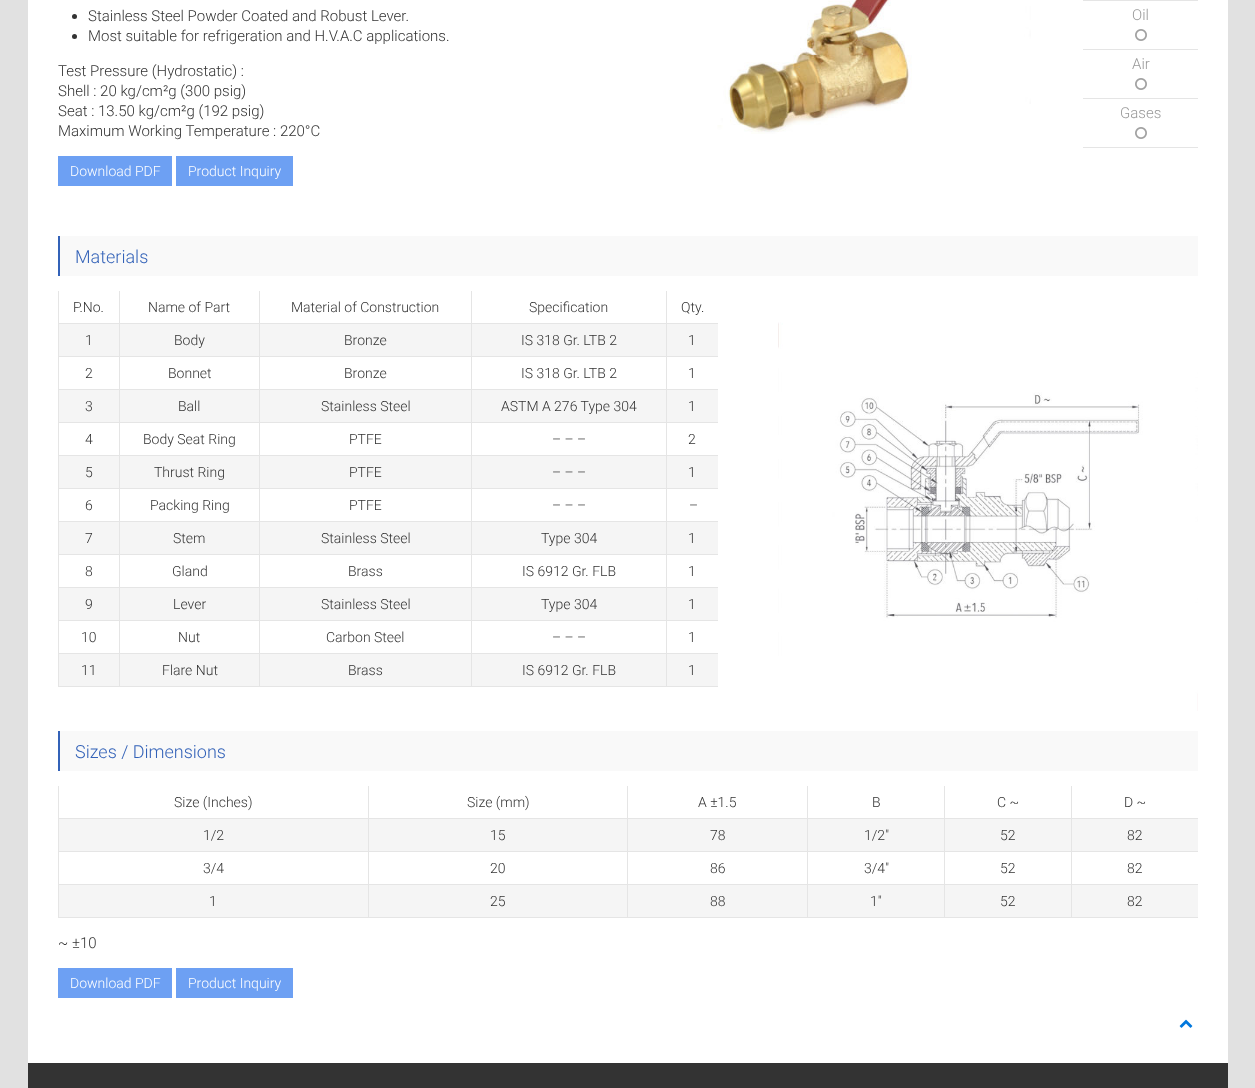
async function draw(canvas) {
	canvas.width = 1255;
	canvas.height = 1088;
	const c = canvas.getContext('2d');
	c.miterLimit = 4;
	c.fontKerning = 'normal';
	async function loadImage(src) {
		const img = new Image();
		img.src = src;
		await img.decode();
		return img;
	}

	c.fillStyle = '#e1e1e1';
	c.fillRect(0, 0, 1255, 1088);
	c.fillStyle = '#fff';
	c.fillRect(28, 0, 1200, 1063);
	c.fillStyle = '#333';
	c.beginPath();
	c.arc(74.5, 16.5, 2.5, 0, 2 * Math.PI);
	c.fill();
	c.font = '300 15px Roboto';
	c.fillText('Stainless Steel Powder Coated and Robust Lever.', 88, 21);
	c.beginPath();
	c.arc(74.5, 36.5, 2.5, 0, 2 * Math.PI);
	c.fill();
	for (const [text, x, y] of [
		['Most suitable for refrigeration and H.V.A.C applications.', 88, 41],
		['Test Pressure (Hydrostatic) :', 58, 76],
		['Shell : 20 kg/cm²g (300 psig)', 58, 96],
		['Seat : 13.50 kg/cm²g (192 psig)', 58, 116],
		['Maximum Working Temperature : 220°C', 58, 136],
	]) {
		c.fillText(text, x, y);
	}
	c.fillStyle = '#6da0f3';
	c.fillRect(58, 156, 114, 30);
	c.font = '300 14px Roboto';
	c.fillStyle = '#fff';
	c.fillText('Download PDF', 70, 176);
	c.fillStyle = '#6da0f3';
	c.fillRect(176, 156, 117, 30);
	c.fillStyle = '#fff';
	c.fillText('Product Inquiry', 188, 176);
	c.drawImage(await loadImage('img1.png'), 717, 0, 314, 134);
	c.fillStyle = '#e5e5e5';
	c.fillRect(1083, 0, 115, 1);
	c.fillRect(1083, 49, 115, 1);
	c.font = '300 15px Roboto';
	c.fillStyle = '#999';
	c.fillText('Oil', 1132, 20);
	c.drawImage(await loadImage('img2.png'), 1135, 29, 12, 12);
	c.fillStyle = '#e5e5e5';
	c.fillRect(1083, 98, 115, 1);
	c.fillStyle = '#999';
	c.fillText('Air', 1132, 69);
	c.drawImage(await loadImage('img2.png'), 1135, 78, 12, 12);
	c.fillStyle = '#e5e5e5';
	c.fillRect(1083, 147, 115, 1);
	c.fillStyle = '#999';
	c.fillText('Gases', 1120, 118);
	c.drawImage(await loadImage('img2.png'), 1135, 127, 12, 12);
	c.fillStyle = '#f9f9f9';
	c.fillRect(60, 236, 1138, 40);
	c.fillStyle = '#3362b8';
	c.fillRect(58, 236, 2, 40);
	c.font = '300 18px Roboto';
	c.fillText('Materials', 75, 263);
	c.fillStyle = '#e5e5e5';
	c.fillRect(58, 323, 660, 1);
	c.font = '300 14px Roboto';
	c.fillStyle = '#333';
	for (const [text, x, y] of [
		['P.No.', 73, 312],
		['Name of Part', 148, 312],
		['Material of Construction', 291, 312],
		['Specification', 529, 312],
		['Qty.', 681, 312],
	]) {
		c.fillText(text, x, y);
	}
	c.fillStyle = '#f5f5f5';
	c.fillRect(59, 324, 659, 32);
	c.fillStyle = '#e5e5e5';
	c.fillRect(58, 356, 660, 1);
	c.fillStyle = '#333';
	for (const [text, x, y] of [
		['1', 85, 345],
		['Body', 174, 345],
		['Bronze', 344, 345],
		['IS 318 Gr. LTB 2', 521, 345],
		['1', 688, 345],
	]) {
		c.fillText(text, x, y);
	}
	c.fillStyle = '#e5e5e5';
	c.fillRect(58, 389, 660, 1);
	c.fillStyle = '#333';
	for (const [text, x, y] of [
		['2', 85, 378],
		['Bonnet', 168, 378],
		['Bronze', 344, 378],
		['IS 318 Gr. LTB 2', 521, 378],
		['1', 688, 378],
	]) {
		c.fillText(text, x, y);
	}
	c.fillStyle = '#f5f5f5';
	c.fillRect(59, 390, 659, 32);
	c.fillStyle = '#e5e5e5';
	c.fillRect(58, 422, 660, 1);
	c.fillStyle = '#333';
	for (const [text, x, y] of [
		['3', 85, 411],
		['Ball', 178, 411],
		['Stainless Steel', 321, 411],
		['ASTM A 276 Type 304', 501, 411],
		['1', 688, 411],
	]) {
		c.fillText(text, x, y);
	}
	c.fillStyle = '#e5e5e5';
	c.fillRect(58, 455, 660, 1);
	c.fillStyle = '#333';
	for (const [text, x, y] of [
		['4', 85, 444],
		['Body Seat Ring', 143, 444],
		['PTFE', 349, 444],
		['– – –', 552, 444],
		['2', 688, 444],
	]) {
		c.fillText(text, x, y);
	}
	c.fillStyle = '#f5f5f5';
	c.fillRect(59, 456, 659, 32);
	c.fillStyle = '#e5e5e5';
	c.fillRect(58, 488, 660, 1);
	c.fillStyle = '#333';
	for (const [text, x, y] of [
		['5', 85, 477],
		['Thrust Ring', 154, 477],
		['PTFE', 349, 477],
		['– – –', 552, 477],
		['1', 688, 477],
	]) {
		c.fillText(text, x, y);
	}
	c.fillStyle = '#e5e5e5';
	c.fillRect(58, 521, 660, 1);
	c.fillStyle = '#333';
	for (const [text, x, y] of [
		['6', 85, 510],
		['Packing Ring', 150, 510],
		['PTFE', 349, 510],
		['– – –', 552, 510],
		['–', 689, 510],
	]) {
		c.fillText(text, x, y);
	}
	c.fillStyle = '#f5f5f5';
	c.fillRect(59, 522, 659, 32);
	c.fillStyle = '#e5e5e5';
	c.fillRect(58, 554, 660, 1);
	c.fillStyle = '#333';
	for (const [text, x, y] of [
		['7', 85, 543],
		['Stem', 173, 543],
		['Stainless Steel', 321, 543],
		['Type 304', 541, 543],
		['1', 688, 543],
	]) {
		c.fillText(text, x, y);
	}
	c.fillStyle = '#e5e5e5';
	c.fillRect(58, 587, 660, 1);
	c.fillStyle = '#333';
	for (const [text, x, y] of [
		['8', 85, 576],
		['Gland', 172, 576],
		['Brass', 348, 576],
		['IS 6912 Gr. FLB', 522, 576],
		['1', 688, 576],
	]) {
		c.fillText(text, x, y);
	}
	c.fillStyle = '#f5f5f5';
	c.fillRect(59, 588, 659, 32);
	c.fillStyle = '#e5e5e5';
	c.fillRect(58, 620, 660, 1);
	c.fillStyle = '#333';
	for (const [text, x, y] of [
		['9', 85, 609],
		['Lever', 173, 609],
		['Stainless Steel', 321, 609],
		['Type 304', 541, 609],
		['1', 688, 609],
	]) {
		c.fillText(text, x, y);
	}
	c.fillStyle = '#e5e5e5';
	c.fillRect(58, 653, 660, 1);
	c.fillStyle = '#333';
	for (const [text, x, y] of [
		['10', 81, 642],
		['Nut', 178, 642],
		['Carbon Steel', 326, 642],
		['– – –', 552, 642],
		['1', 688, 642],
	]) {
		c.fillText(text, x, y);
	}
	for (const [x, y, w, h, color] of [
		[59, 654, 659, 32, '#f5f5f5'],
		[58, 686, 660, 1, '#e5e5e5'],
		[58, 291, 1, 396, '#e5e5e5'],
	]) {
		c.fillStyle = color;
		c.fillRect(x, y, w, h);
	}
	c.fillStyle = '#333';
	c.fillText('11', 81, 675);
	c.fillStyle = '#e5e5e5';
	c.fillRect(119, 291, 1, 396);
	c.fillStyle = '#333';
	c.fillText('Flare Nut', 162, 675);
	c.fillStyle = '#e5e5e5';
	c.fillRect(259, 291, 1, 396);
	c.fillStyle = '#333';
	c.fillText('Brass', 348, 675);
	c.fillStyle = '#e5e5e5';
	c.fillRect(471, 291, 1, 396);
	c.fillStyle = '#333';
	c.fillText('IS 6912 Gr. FLB', 522, 675);
	c.fillStyle = '#e5e5e5';
	c.fillRect(666, 291, 1, 396);
	c.fillStyle = '#333';
	c.fillText('1', 688, 675);
	c.drawImage(await loadImage('img3.png'), 778, 322, 420, 389);
	c.fillStyle = '#f9f9f9';
	c.fillRect(60, 731, 1138, 40);
	c.fillStyle = '#3362b8';
	c.fillRect(58, 731, 2, 40);
	c.font = '300 18px Roboto';
	c.fillText('Sizes / Dimensions', 75, 758);
	c.fillStyle = '#e5e5e5';
	c.fillRect(58, 818, 1140, 1);
	c.font = '300 14px Roboto';
	c.fillStyle = '#333';
	for (const [text, x, y] of [
		['Size (Inches)', 174, 807],
		['Size (mm)', 467, 807],
		['A ±1.5', 698, 807],
		['B', 872, 807],
		['C ~', 997, 807],
		['D ~', 1124, 807],
	]) {
		c.fillText(text, x, y);
	}
	c.fillStyle = '#f5f5f5';
	c.fillRect(59, 819, 1139, 32);
	c.fillStyle = '#e5e5e5';
	c.fillRect(58, 851, 1140, 1);
	c.fillStyle = '#333';
	for (const [text, x, y] of [
		['1/2', 203, 840],
		['15', 490, 840],
		['78', 710, 840],
		['1/2″', 864, 840],
		['52', 1000, 840],
		['82', 1127, 840],
	]) {
		c.fillText(text, x, y);
	}
	c.fillStyle = '#e5e5e5';
	c.fillRect(58, 884, 1140, 1);
	c.fillStyle = '#333';
	for (const [text, x, y] of [
		['3/4', 203, 873],
		['20', 490, 873],
		['86', 710, 873],
		['3/4″', 864, 873],
		['52', 1000, 873],
		['82', 1127, 873],
	]) {
		c.fillText(text, x, y);
	}
	for (const [x, y, w, h, color] of [
		[59, 885, 1139, 32, '#f5f5f5'],
		[58, 917, 1140, 1, '#e5e5e5'],
		[58, 786, 1, 132, '#e5e5e5'],
	]) {
		c.fillStyle = color;
		c.fillRect(x, y, w, h);
	}
	c.fillStyle = '#333';
	c.fillText('1', 209, 906);
	c.fillStyle = '#e5e5e5';
	c.fillRect(368, 786, 1, 132);
	c.fillStyle = '#333';
	c.fillText('25', 490, 906);
	c.fillStyle = '#e5e5e5';
	c.fillRect(627, 786, 1, 132);
	c.fillStyle = '#333';
	c.fillText('88', 710, 906);
	c.fillStyle = '#e5e5e5';
	c.fillRect(807, 786, 1, 132);
	c.fillStyle = '#333';
	c.fillText('1″', 870, 906);
	c.fillStyle = '#e5e5e5';
	c.fillRect(944, 786, 1, 132);
	c.fillStyle = '#333';
	c.fillText('52', 1000, 906);
	c.fillStyle = '#e5e5e5';
	c.fillRect(1071, 786, 1, 132);
	c.fillStyle = '#333';
	c.fillText('82', 1127, 906);
	c.font = '300 15px Roboto';
	c.fillText('~ ±10', 58, 948);
	c.fillStyle = '#6da0f3';
	c.fillRect(58, 968, 114, 30);
	c.font = '300 14px Roboto';
	c.fillStyle = '#fff';
	c.fillText('Download PDF', 70, 988);
	c.fillStyle = '#6da0f3';
	c.fillRect(176, 968, 117, 30);
	c.fillStyle = '#fff';
	c.fillText('Product Inquiry', 188, 988);
	c.drawImage(await loadImage('img4.png'), 1179, 1019, 14, 9);
	c.fillStyle = '#333';
	c.fillRect(28, 1063, 1200, 25);
}

draw(document.querySelector('canvas'));
